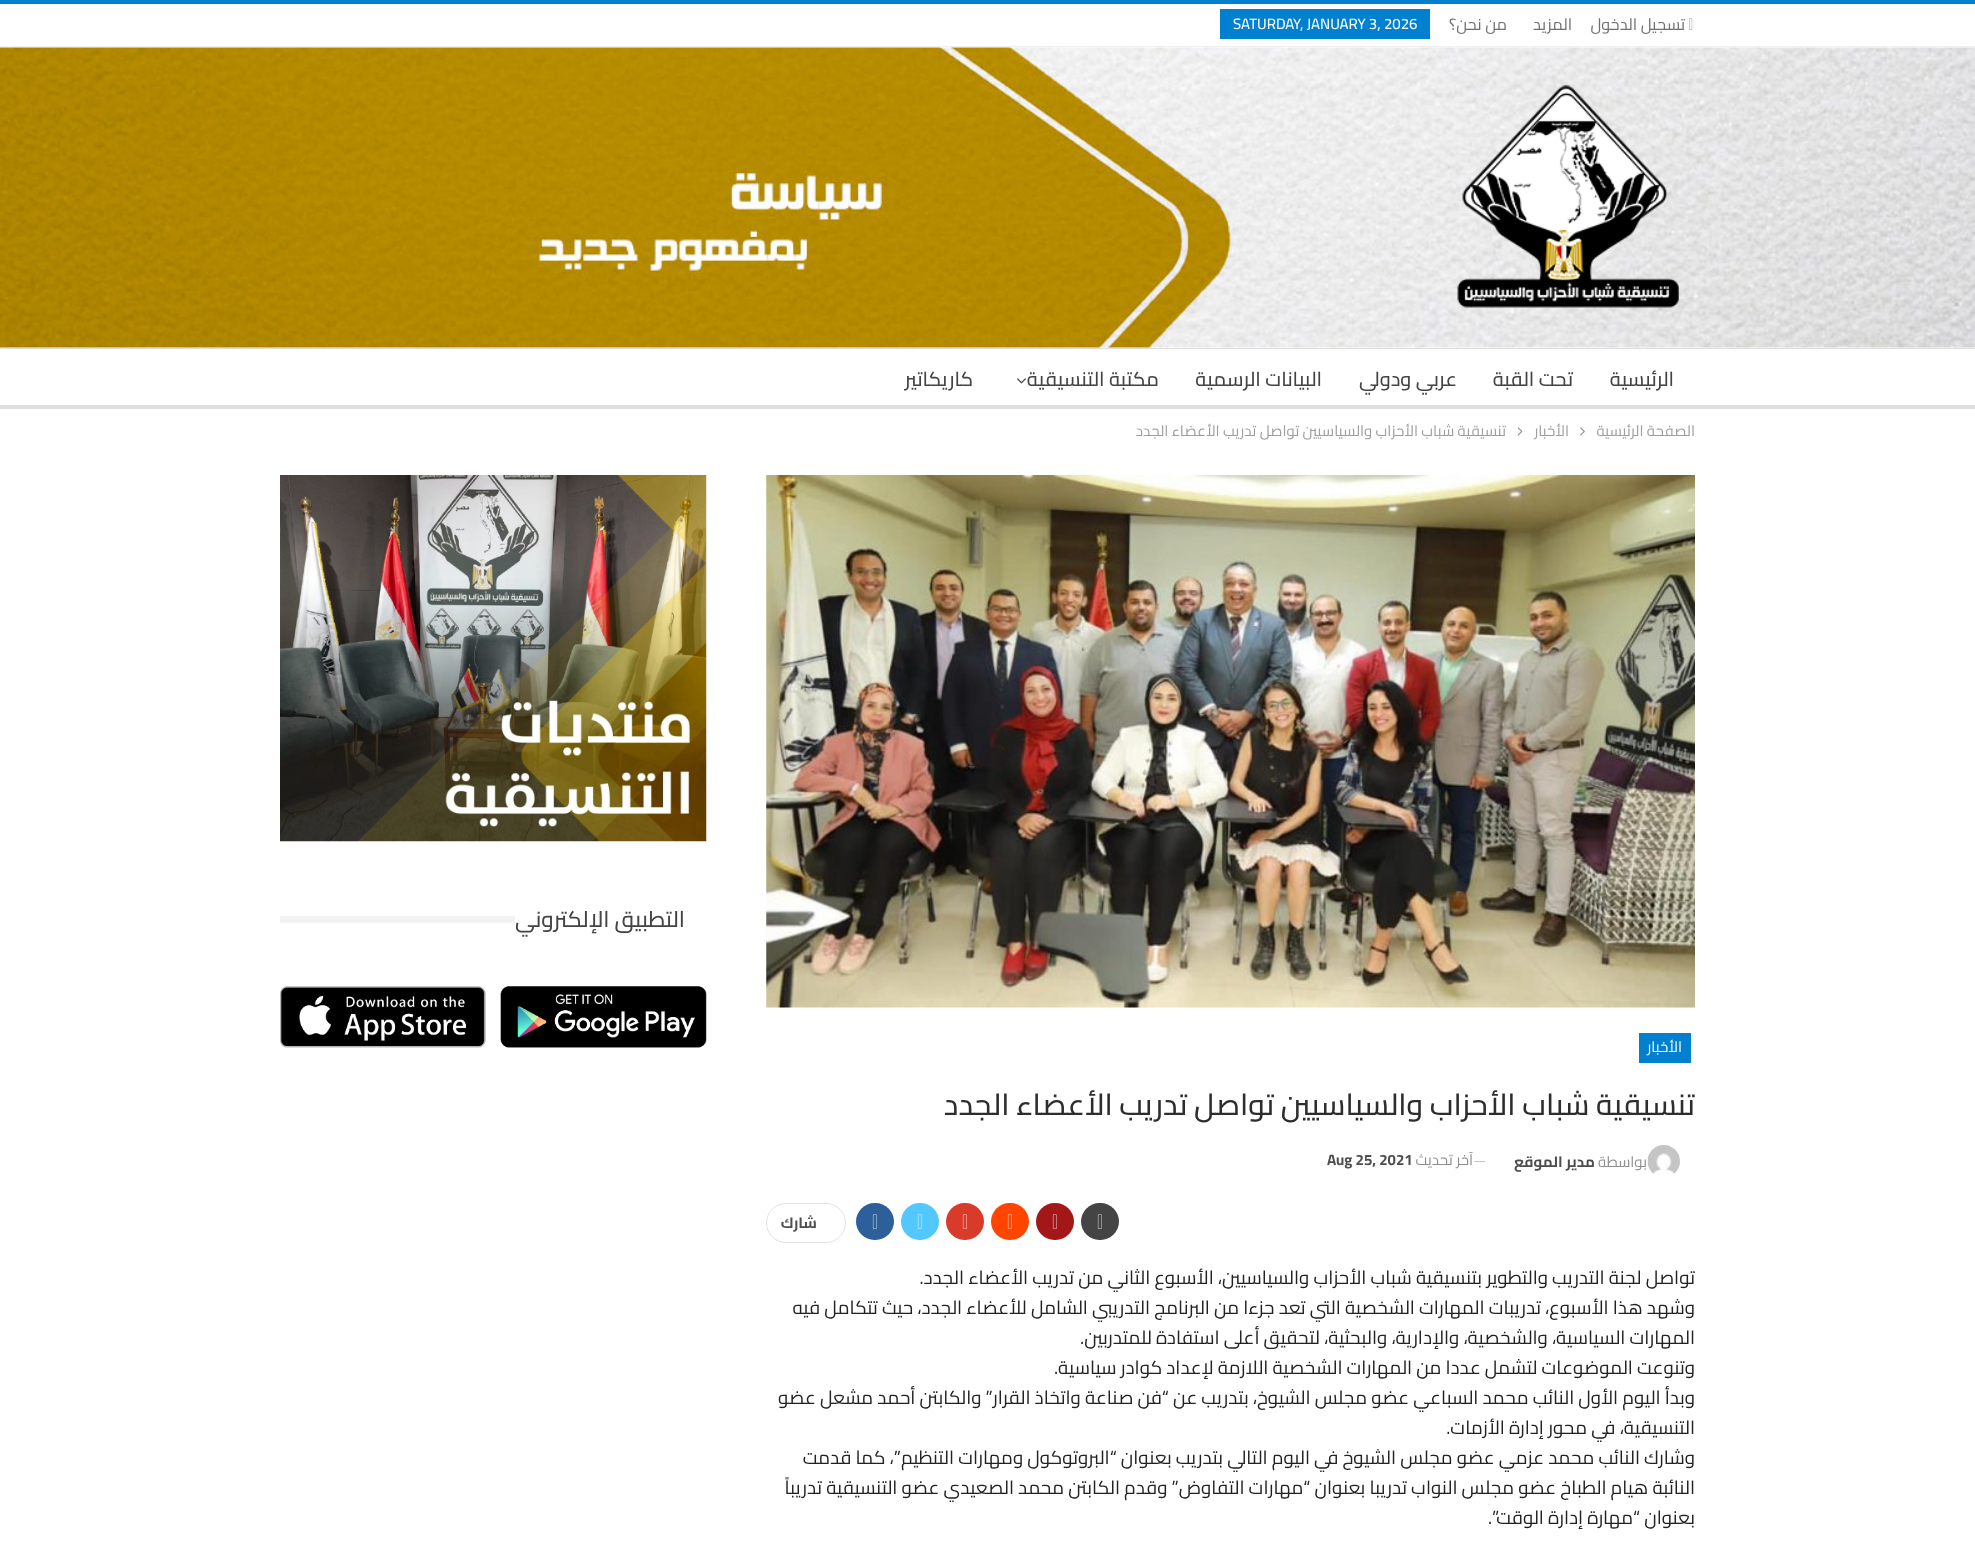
async function draw(canvas) {
	canvas.width = 1975;
	canvas.height = 1544;
	const c = canvas.getContext('2d');
	c.miterLimit = 4;
	c.fontKerning = 'normal';
	async function loadImage(src) {
		const img = new Image();
		img.src = src;
		await img.decode();
		return img;
	}

	c.fillStyle = '#fff';
	c.fillRect(0, 0, 1975, 1544);
	c.fillStyle = '#0080ce';
	c.fillRect(0, 0, 1975, 4);
	c.fillStyle = '#efefef';
	c.fillRect(0, 46, 1975, 1);
	c.drawImage(await loadImage('img1.png'), 1689, 18, 4, 12);
	c.direction = 'rtl';
	c.font = '16.25px Cairo';
	c.fillStyle = '#707070';
	for (const [text, x, y] of [
		['تسجيل الدخول', 1685, 30],
		['المزيد', 1572, 30],
		['من نحن؟', 1507, 30],
	]) {
		c.fillText(text, x, y);
	}
	c.fillStyle = '#0080ce';
	c.fillRect(1220, 9, 210, 30);
	c.direction = 'ltr';
	c.font = '500 15px Cairo';
	c.fillStyle = '#fff';
	c.fillText('SATURDAY, JANUARY 3, 2026', 1233, 29);
	c.drawImage(await loadImage('img2.png'), 0, 47, 1975, 301);
	c.drawImage(await loadImage('img3.png'), 1457, 84, 222, 224);
	c.fillStyle = '#dedede';
	c.fillRect(0, 348, 1975, 1);
	c.fillRect(0, 405, 1975, 4);
	c.direction = 'rtl';
	c.font = '500 20px Cairo';
	c.fillStyle = '#444';
	for (const [text, x, y] of [
		['الرئيسية', 1674, 386],
		['تحت القبة', 1573, 386],
		['عربي ودولي', 1457, 386],
		['البيانات الرسمية', 1322, 386],
		['مكتبة التنسيقية', 1159, 386],
	]) {
		c.fillText(text, x, y);
	}
	c.drawImage(await loadImage('img4.png'), 1017, 378, 9, 6);
	c.fillText('كاريكاتير', 973, 386);
	c.font = '15px Cairo';
	c.fillStyle = '#9e9e9e';
	c.fillText('الصفحة الرئيسية', 1695, 436);
	c.drawImage(await loadImage('img5.png'), 1580, 427, 5, 9);
	c.fillText('الأخبار', 1569, 436);
	c.drawImage(await loadImage('img6.png'), 1517, 427, 6, 9);
	c.fillText('تنسيقية شباب الأحزاب والسياسيين تواصل تدريب الأعضاء الجدد', 1506, 436);
	c.drawImage(await loadImage('img7.png'), 280, 475, 427, 367);
	c.font = '500 22.5px Cairo';
	c.fillStyle = '#444';
	c.fillText('التطبيق الإلكتروني', 685, 927);
	c.fillStyle = '#f2f2f2';
	c.fillRect(280, 916, 235, 7);
	c.drawImage(await loadImage('img8.png'), 280, 986, 427, 62);
	c.drawImage(await loadImage('img9.png'), 766, 475, 929, 533);
	c.fillStyle = '#0080ce';
	c.fillRect(1639, 1033, 52, 30);
	c.font = '15px Cairo';
	c.fillStyle = '#fff';
	c.fillText('الأخبار', 1682, 1052);
	c.font = '500 30px Cairo';
	c.fillStyle = '#2d2d2d';
	c.fillText('تنسيقية شباب الأحزاب والسياسيين تواصل تدريب الأعضاء الجدد', 1695, 1115);
	c.drawImage(await loadImage('img10.png'), 1647, 1145, 33, 30);
	c.font = '15px Cairo';
	c.fillStyle = '#8f8f8f';
	c.fillText('بواسطة', 1647, 1167);
	c.font = 'bold 15px Cairo';
	c.fillStyle = '#4d4d4d';
	c.fillText('مدير الموقع', 1595, 1167);
	c.fillStyle = '#c4c4c4';
	c.fillRect(1474, 1161, 11, 1);
	c.font = '15px Cairo';
	c.fillStyle = '#8f8f8f';
	c.fillText('آخر تحديث', 1473, 1165);
	c.direction = 'ltr';
	c.font = 'bold 15px Cairo';
	c.fillStyle = '#4d4d4d';
	c.fillText('Aug 25, 2021', 1327, 1165);
	c.fillStyle = '#444';
	c.beginPath();
	c.roundRect(1081, 1203, 38, 37, 18.5);
	c.fill();
	c.drawImage(await loadImage('img11.png'), 1097, 1214, 5, 15);
	c.fillStyle = '#a41719';
	c.beginPath();
	c.roundRect(1036, 1203, 38, 37, 18.5);
	c.fill();
	c.drawImage(await loadImage('img12.png'), 1052, 1214, 5, 15);
	c.fillStyle = '#ff4500';
	c.beginPath();
	c.roundRect(991, 1203, 38, 37, 18.5);
	c.fill();
	c.drawImage(await loadImage('img13.png'), 1007, 1214, 5, 15);
	c.fillStyle = '#d93b2b';
	c.beginPath();
	c.roundRect(946, 1203, 38, 37, 18.5);
	c.fill();
	c.drawImage(await loadImage('img14.png'), 962, 1214, 5, 15);
	c.fillStyle = '#53c7ff';
	c.beginPath();
	c.roundRect(901, 1203, 38, 37, 18.5);
	c.fill();
	c.drawImage(await loadImage('img15.png'), 917, 1214, 5, 15);
	c.fillStyle = '#2d5f9a';
	c.beginPath();
	c.roundRect(856, 1203, 38, 37, 18.5);
	c.fill();
	c.drawImage(await loadImage('img16.png'), 872, 1214, 5, 15);
	c.beginPath();
	c.roundRect(766.5, 1203.5, 79, 39, 19.5);
	c.strokeStyle = '#e2e2e2';
	c.stroke();
	c.direction = 'rtl';
	c.fillStyle = '#4d4d4d';
	c.fillText('شارك', 817, 1228);
	c.font = '18.75px Cairo';
	c.fillStyle = '#222';
	for (const [text, x, y] of [
		['تواصل لجنة التدريب والتطوير', 1695, 1284],
		['بتنسيقية شباب الأحزاب والسياسيين، الأسبوع الثاني من تدريب الأعضاء الجدد.', 1482, 1284],
		['وشهد هذا الأسبوع، تدريبات المهارات الشخصية التي تعد جزءا من البرنامج التدريبي الشامل للأعضاء الجدد، حيث تتكامل فيه', 1695, 1314],
		['المهارات السياسية، والشخصية، والإدارية، والبحثية، لتحقيق أعلى استفادة للمتدربين.', 1695, 1344],
		['وتنوعت الموضوعات لتشمل عددا من المهارات الشخصية اللازمة لإعداد كوادر سياسية.', 1695, 1374],
		['وبدأ اليوم الأول النائب محمد السباعي عضو مجلس الشيوخ، بتدريب عن “فن صناعة واتخاذ القرار” والكابتن أحمد مشعل عضو', 1695, 1404],
		['التنسيقية، في محور إدارة الأزمات.', 1695, 1434],
		['وشارك النائب محمد عزمي عضو مجلس الشيوخ في اليوم التالي بتدريب بعنوان “البروتوكول ومهارات التنظيم”، كما قدمت', 1695, 1464],
		['النائبة هيام الطباخ عضو مجلس النواب تدريبا بعنوان “مهارات التفاوض” وقدم الكابتن محمد الصعيدي عضو التنسيقية تدريباً', 1695, 1494],
		['بعنوان “مهارة إدارة الوقت”.', 1695, 1524],
	]) {
		c.fillText(text, x, y);
	}
}

draw(document.querySelector('canvas'));
